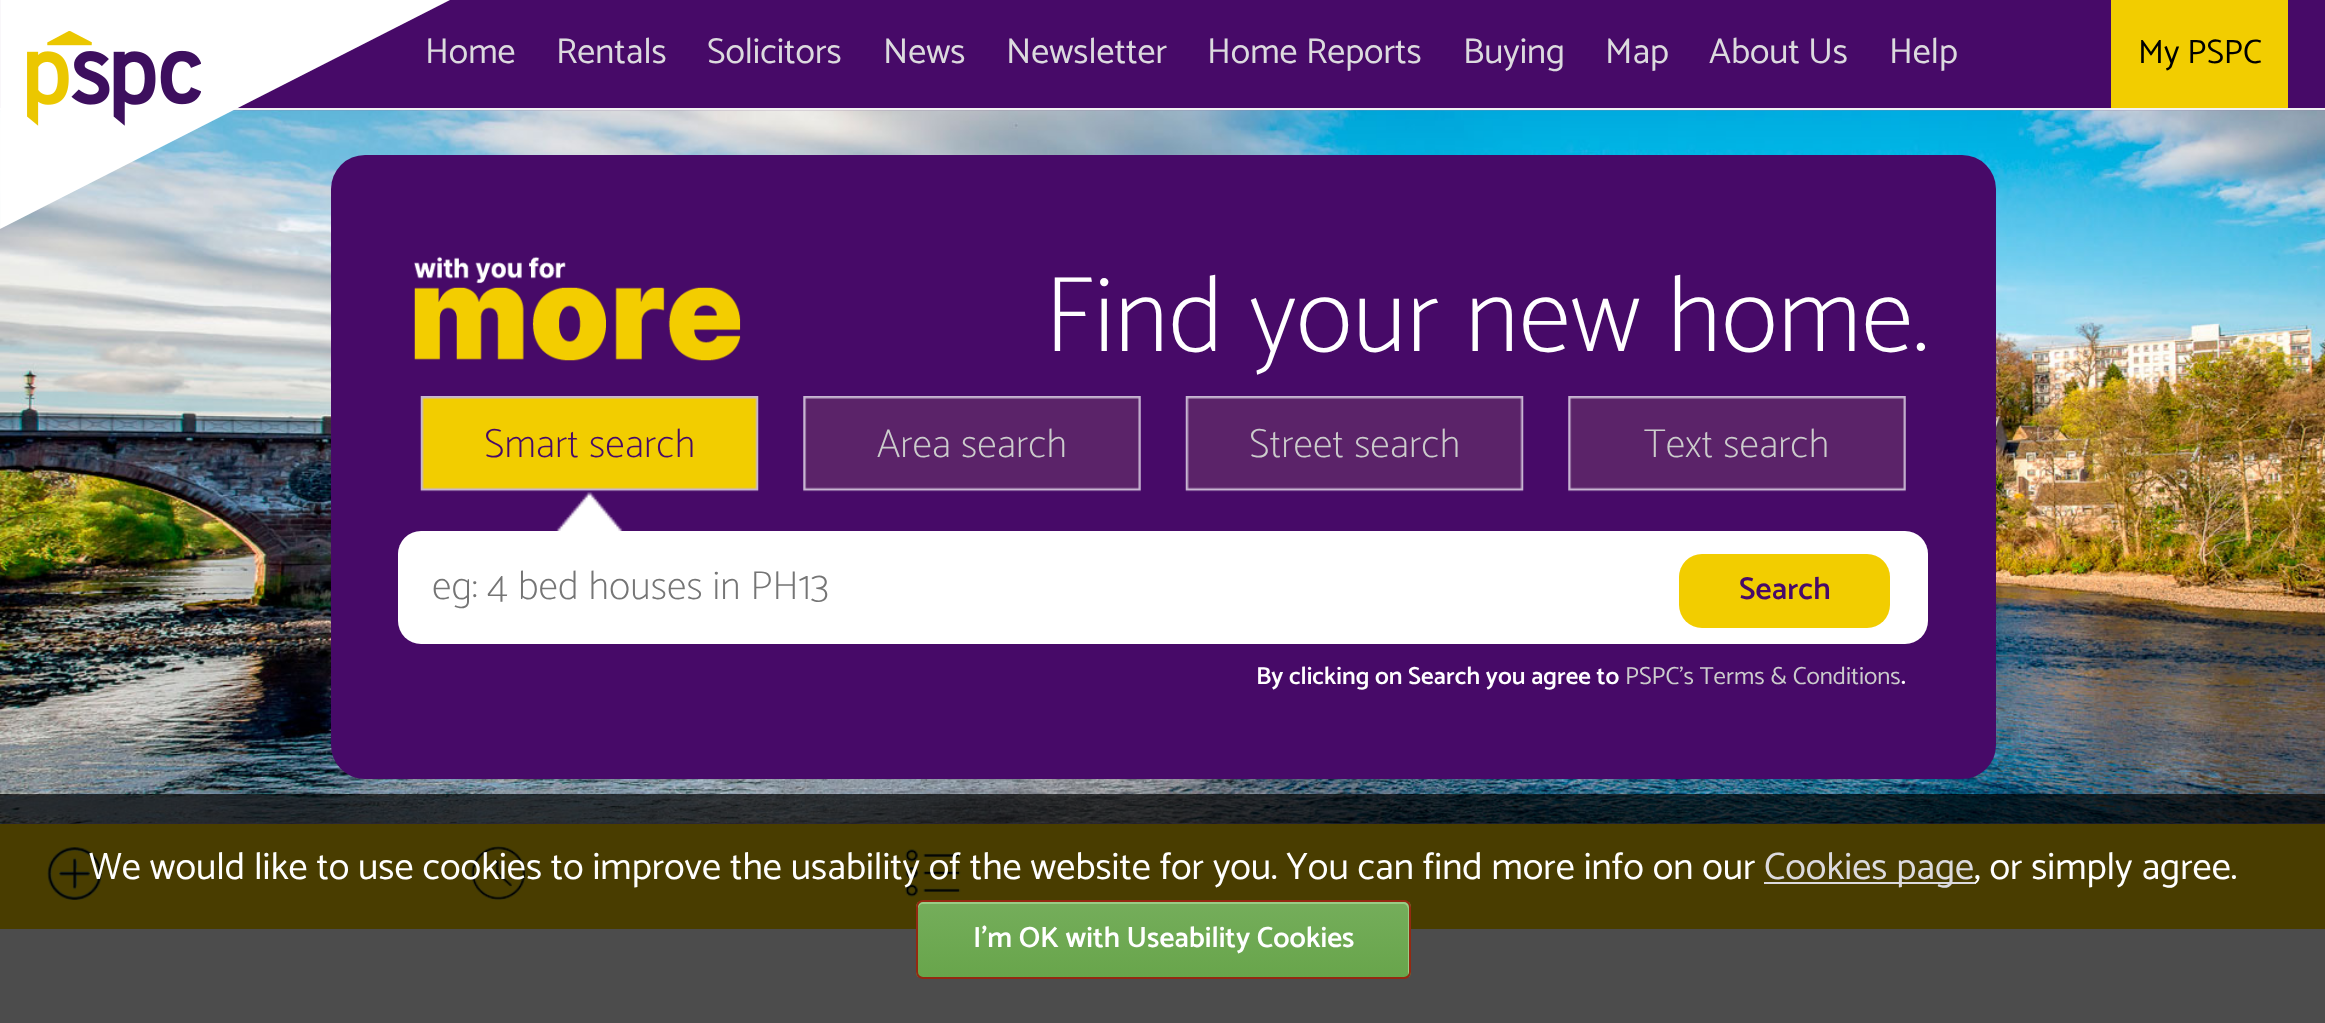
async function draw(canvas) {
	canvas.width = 2325;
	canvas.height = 1023;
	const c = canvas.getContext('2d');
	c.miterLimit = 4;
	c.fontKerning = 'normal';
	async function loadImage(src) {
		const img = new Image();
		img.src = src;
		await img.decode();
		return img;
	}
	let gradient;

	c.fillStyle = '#fff';
	c.fillRect(0, 0, 2325, 1023);
	c.fillStyle = '#470a68';
	c.fillRect(0, 0, 2325, 108);
	c.fillStyle = '#f2f2f2';
	c.fillRect(0, 108, 2325, 2);
	c.font = '36px Catamaran';
	c.fillStyle = '#dcdade';
	c.fillText('Home', 425, 63);
	c.fillStyle = '#9b81a5';
	c.fillRect(0, 110, 2325, 714);
	c.drawImage(await loadImage('img2.png'), 0, 110, 2325, 714);
	c.fillStyle = '#470a68';
	c.beginPath();
	c.roundRect(331, 155, 1665, 624, 34);
	c.fill();
	c.drawImage(await loadImage('img1.png'), 0, 0, 450, 229);
	c.fillStyle = '#dcdade';
	for (const [text, x, y] of [
		['Rentals', 556, 63],
		['Solicitors', 707, 63],
		['News', 883, 63],
		['Newsletter', 1006, 63],
		['Home Reports', 1207, 63],
		['Buying', 1463, 63],
		['Map', 1605, 63],
		['About Us', 1709, 63],
		['Help', 1889, 63],
	]) {
		c.fillText(text, x, y);
	}
	c.fillStyle = '#f2cd00';
	c.fillRect(2111, 0, 177, 108);
	c.font = '34px Catamaran';
	c.fillStyle = '#000';
	c.fillText('My PSPC', 2138, 63);
	c.drawImage(await loadImage('img3.png'), 413, 256, 328, 105);
	c.font = '100 108px Catamaran';
	c.fillStyle = '#fff';
	c.fillText('Find your new home.', 1044, 351);
	c.drawImage(await loadImage('img4.png'), 420, 396, 339, 135);
	c.font = '100 40.5px Catamaran';
	c.fillStyle = '#470a68';
	c.fillText('Smart search', 484, 457);
	c.drawImage(await loadImage('img5.png'), 803, 396, 338, 96);
	c.fillStyle = '#ccc';
	c.fillText('Area search', 877, 457);
	c.drawImage(await loadImage('img6.png'), 1185, 396, 339, 96);
	c.fillText('Street search', 1249, 457);
	c.drawImage(await loadImage('img7.png'), 1568, 396, 338, 96);
	c.fillText('Text search', 1644, 457);
	c.fillStyle = '#fff';
	c.beginPath();
	c.roundRect(398, 531, 1530, 113, 23);
	c.fill();
	c.fillStyle = '#757575';
	c.fillText('eg: 4 bed houses in PH13', 432, 599);
	c.fillStyle = '#f2cd00';
	c.beginPath();
	c.roundRect(1679, 554, 211, 74, 23);
	c.fill();
	c.font = '600 31.5px Catamaran';
	c.fillStyle = '#470a68';
	c.fillText('Search', 1739, 599);
	c.font = '600 24.75px Catamaran';
	c.fillStyle = '#fff';
	c.fillText('By clicking on Search you agree to', 1256, 684);
	c.font = '24.75px Catamaran';
	c.fillStyle = '#ccc';
	c.fillText('PSPC\'s Terms & Conditions', 1625, 684);
	c.font = '600 24.75px Catamaran';
	c.fillStyle = '#fff';
	c.fillText('.', 1901, 684);
	c.fillStyle = '#f3cd00';
	c.fillRect(0, 824, 2325, 105);
	c.drawImage(await loadImage('img8.png'), 47, 847, 55, 53);
	c.drawImage(await loadImage('img9.png'), 471, 846, 55, 54);
	c.drawImage(await loadImage('img10.png'), 905, 849, 56, 48);
	c.fillStyle = '#000000b3';
	c.fillRect(0, 794, 2325, 229);
	c.font = '38.25px Catamaran';
	c.fillStyle = '#fff';
	c.fillText('We would like to use cookies to improve the usability of the website for you. You can find more info on our', 89, 879);
	c.fillStyle = '#dcdade';
	c.fillRect(1764, 882, 212, 2);
	c.fillText('Cookies page', 1764, 879);
	c.fillStyle = '#fff';
	c.fillText(', or simply agree.', 1974, 879);
	c.save();
	c.beginPath();
	c.roundRect(916, 900, 495, 79, 7);
	c.clip();
	gradient = c.createLinearGradient(1163, 902, 1163, 977);
	gradient.addColorStop(0.05, '#74ad5a');
	gradient.addColorStop(1, '#68a54b');
	c.fillStyle = gradient;
	c.fillRect(916, 902, 495, 75);
	c.restore();
	c.fillStyle = '#9acc85';
	c.beginPath();
	c.moveTo(922, 904);
	c.lineTo(1404, 904);
	c.bezierCurveTo(1406, 904, 1408, 907, 1408, 909);
	c.lineTo(1408, 975);
	c.bezierCurveTo(1409, 974, 1409, 973, 1409, 972);
	c.lineTo(1409, 907);
	c.bezierCurveTo(1409, 904, 1407, 902, 1404, 902);
	c.lineTo(923, 902);
	c.bezierCurveTo(920, 902, 918, 904, 918, 907);
	c.lineTo(918, 909);
	c.bezierCurveTo(918, 907, 920, 904, 922, 904);
	c.closePath();
	c.fill();
	c.beginPath();
	c.roundRect(917, 901, 493, 77, 6);
	c.strokeStyle = '#942911';
	c.lineWidth = 2;
	c.stroke();
	c.font = '600 29.25px Catamaran';
	c.fillStyle = '#fff';
	c.fillText('I\'m OK with Useability Cookies', 973, 947);
}

draw(document.querySelector('canvas'));
